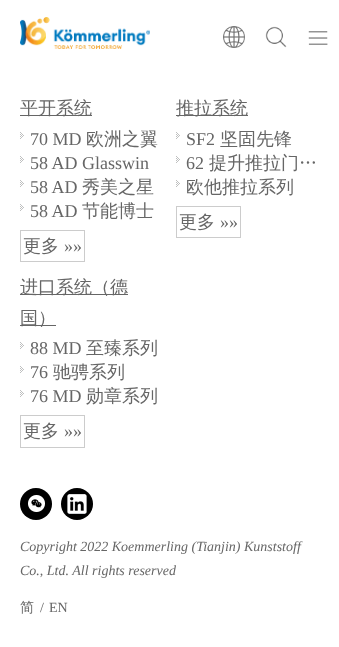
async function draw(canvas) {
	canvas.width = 339;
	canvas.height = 647;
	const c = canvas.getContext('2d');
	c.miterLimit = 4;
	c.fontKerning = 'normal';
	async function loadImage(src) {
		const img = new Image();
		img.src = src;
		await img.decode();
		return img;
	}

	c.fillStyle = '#fff';
	c.fillRect(0, 0, 339, 647);
	c.drawImage(await loadImage('img1.png'), 20, 17, 130, 32);
	c.drawImage(await loadImage('img2.png'), 223, 26, 22, 22);
	c.drawImage(await loadImage('img3.png'), 265, 26, 22, 22);
	c.drawImage(await loadImage('img4.png'), 308, 31, 20, 14);
	c.fillStyle = '#666';
	c.fillRect(20, 115, 72, 1);
	c.font = '500 18px WenQuanYi Zen Hei';
	c.fillText('平开系统', 20, 114);
	c.drawImage(await loadImage('img5.png'), 20, 132, 4, 7);
	c.font = '18px Liberation Serif';
	c.fillText('70 MD', 30, 145);
	c.font = '500 18px WenQuanYi Zen Hei';
	c.fillText('欧洲之翼', 86, 145);
	c.drawImage(await loadImage('img5.png'), 20, 156, 4, 7);
	c.font = '18px Liberation Serif';
	c.fillText('58 AD Glasswin', 30, 169);
	c.drawImage(await loadImage('img5.png'), 20, 180, 4, 7);
	c.fillText('58 AD', 30, 193);
	c.font = '500 18px WenQuanYi Zen Hei';
	c.fillText('秀美之星', 82, 193);
	c.drawImage(await loadImage('img5.png'), 20, 204, 4, 7);
	c.font = '18px Liberation Serif';
	c.fillText('58 AD', 30, 217);
	c.font = '500 18px WenQuanYi Zen Hei';
	c.fillText('节能博士', 82, 217);
	c.strokeStyle = '#ccc';
	c.strokeRect(20.5, 230.5, 64, 31);
	c.fillText('更多', 23, 252);
	c.font = '18px Liberation Serif';
	c.fillText('»»', 64, 252);
	c.fillRect(176, 115, 72, 1);
	c.font = '500 18px WenQuanYi Zen Hei';
	c.fillText('推拉系统', 176, 114);
	c.drawImage(await loadImage('img5.png'), 176, 132, 4, 7);
	c.font = '18px Liberation Serif';
	c.fillText('SF2', 186, 145);
	c.font = '500 18px WenQuanYi Zen Hei';
	c.fillText('坚固先锋', 220, 145);
	c.drawImage(await loadImage('img5.png'), 176, 156, 4, 7);
	c.font = '18px Liberation Serif';
	c.fillText('62', 186, 169);
	c.font = '500 18px WenQuanYi Zen Hei';
	c.fillText('提升推拉门…', 209, 169);
	c.drawImage(await loadImage('img5.png'), 176, 180, 4, 7);
	c.fillText('欧他推拉系列', 186, 193);
	c.strokeRect(176.5, 206.5, 64, 31);
	c.fillText('更多', 179, 228);
	c.font = '18px Liberation Serif';
	c.fillText('»»', 220, 228);
	c.fillRect(20, 294, 108, 1);
	c.font = '500 18px WenQuanYi Zen Hei';
	c.fillText('进口系统（德', 20, 293);
	c.fillRect(20, 325, 36, 1);
	c.fillText('国）', 20, 324);
	c.drawImage(await loadImage('img5.png'), 20, 342, 4, 7);
	c.font = '18px Liberation Serif';
	c.fillText('88 MD', 30, 354);
	c.font = '500 18px WenQuanYi Zen Hei';
	c.fillText('至臻系列', 86, 354);
	c.drawImage(await loadImage('img5.png'), 20, 366, 4, 7);
	c.font = '18px Liberation Serif';
	c.fillText('76', 30, 378);
	c.font = '500 18px WenQuanYi Zen Hei';
	c.fillText('驰骋系列', 53, 378);
	c.drawImage(await loadImage('img5.png'), 20, 390, 4, 7);
	c.font = '18px Liberation Serif';
	c.fillText('76 MD', 30, 402);
	c.font = '500 18px WenQuanYi Zen Hei';
	c.fillText('勋章系列', 86, 402);
	c.strokeRect(20.5, 415.5, 64, 32);
	c.fillText('更多', 23, 437);
	c.font = '18px Liberation Serif';
	c.fillText('»»', 64, 437);
	c.fillStyle = '#000';
	c.beginPath();
	c.arc(36, 504, 16, 0, 2 * Math.PI);
	c.fill();
	c.drawImage(await loadImage('img6.png'), 28, 495, 17, 17);
	c.beginPath();
	c.arc(77, 504, 16, 0, 2 * Math.PI);
	c.fill();
	c.drawImage(await loadImage('img7.png'), 67, 494, 20, 20);
	c.font = 'italic 14px Liberation Serif';
	c.fillStyle = '#666';
	c.fillText('Copyright 2022 Koemmerling (Tianjin) Kunststoff', 20, 551);
	c.fillText('Co., Ltd. All rights reserved', 20, 575);
	c.font = '500 14px WenQuanYi Zen Hei';
	c.fillText('简', 20, 612);
	c.font = '14px Liberation Serif';
	c.fillText('/', 40, 612);
	c.fillText('EN', 49, 612);
}

draw(document.querySelector('canvas'));
